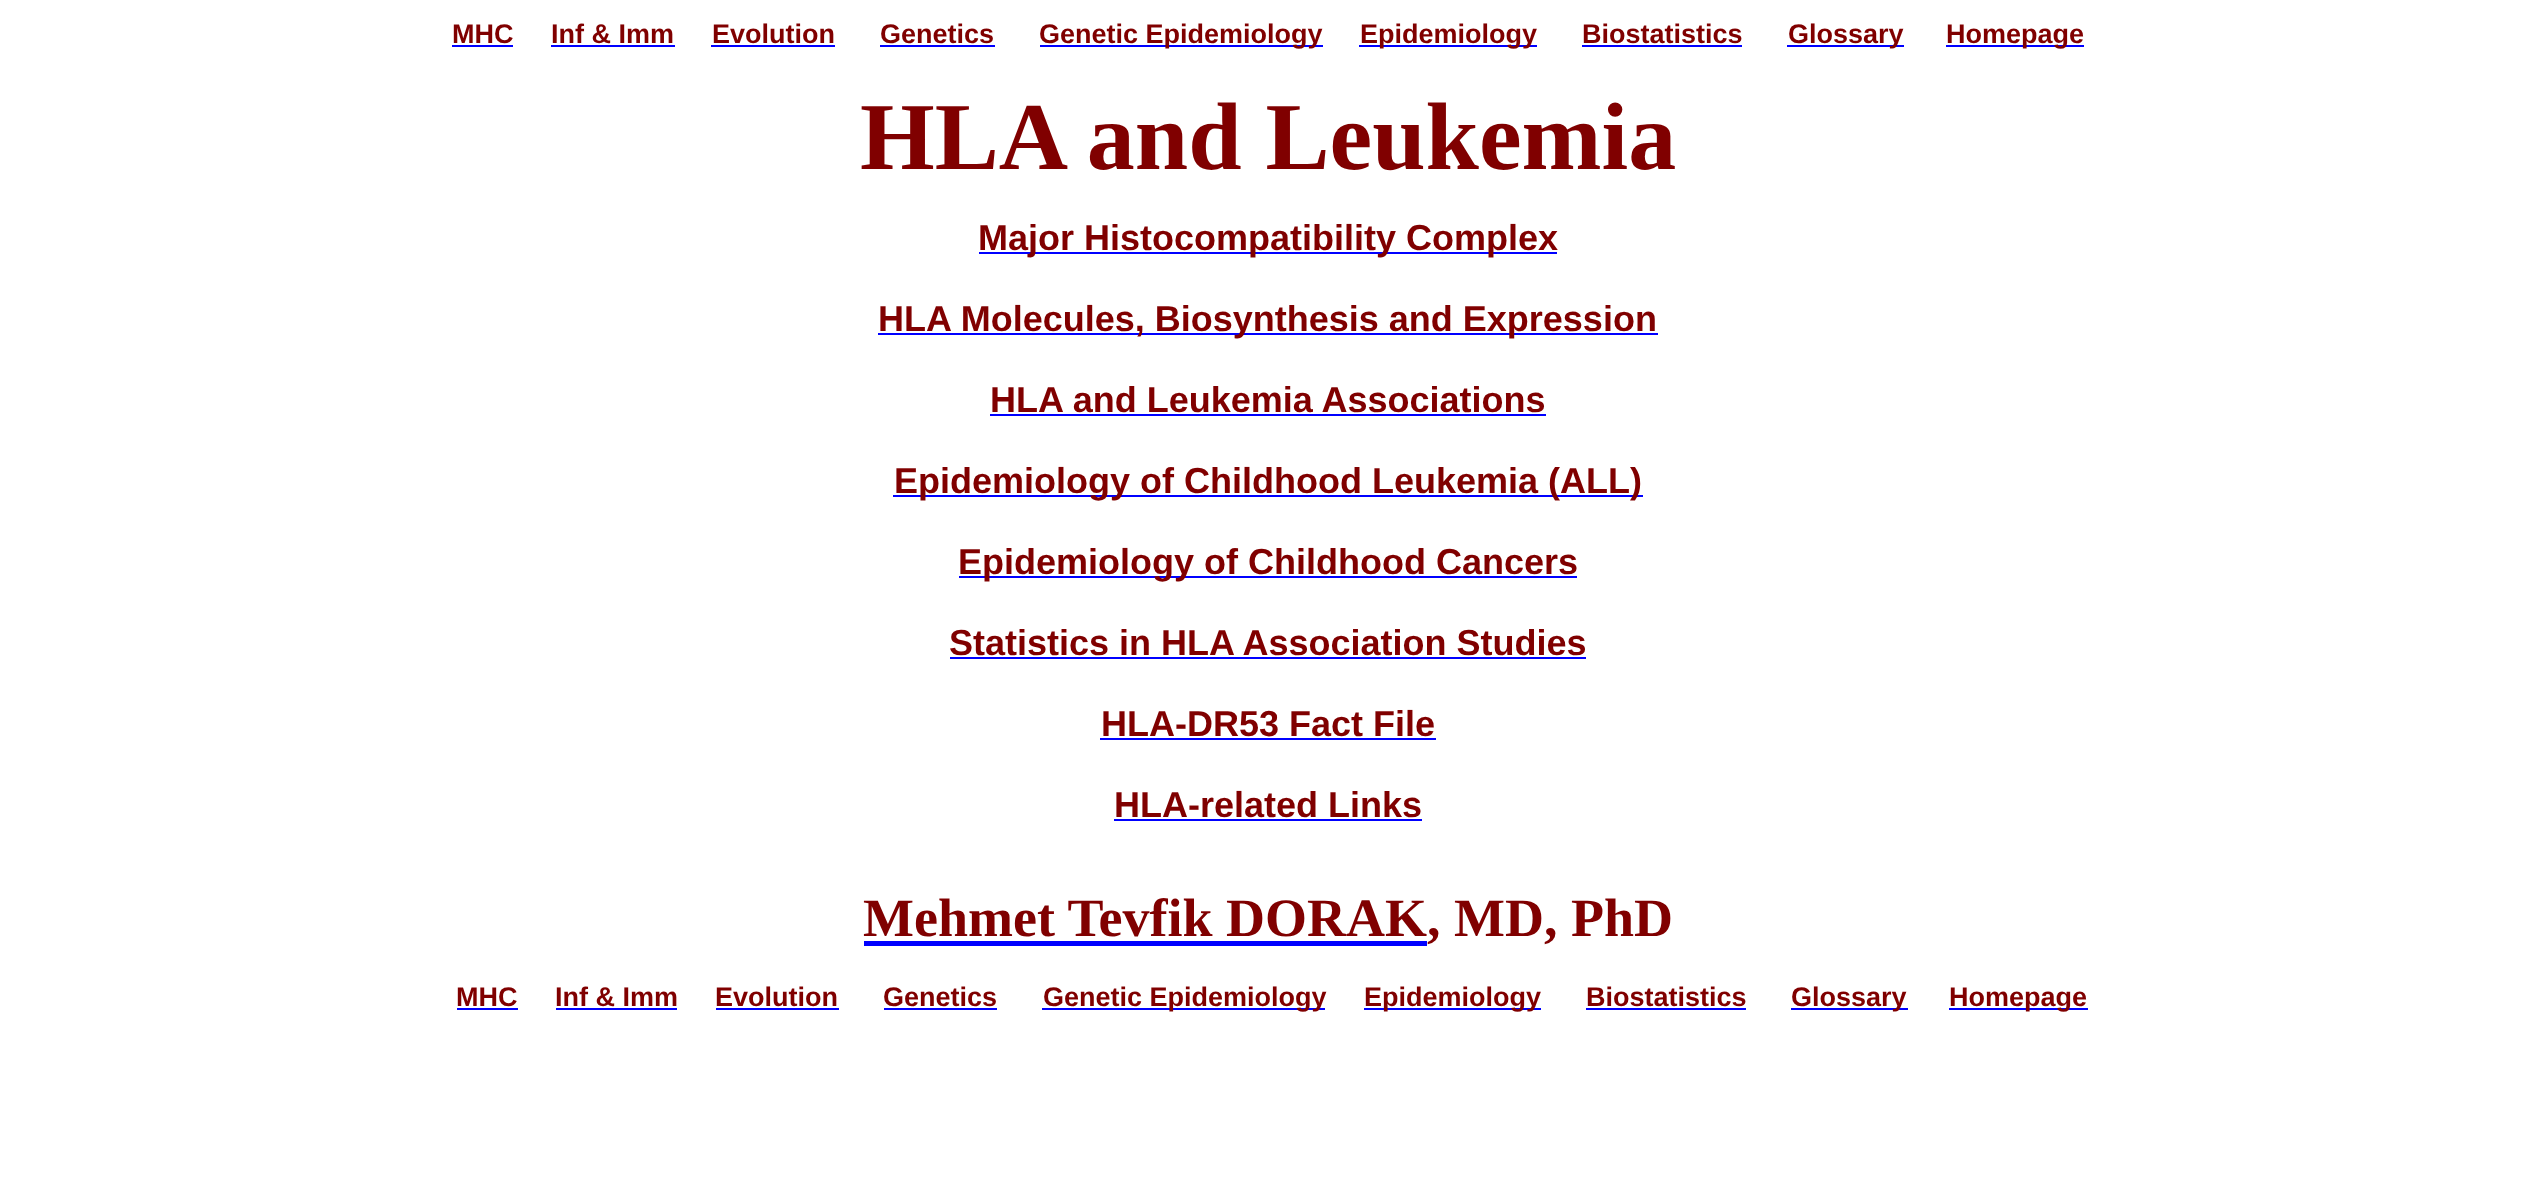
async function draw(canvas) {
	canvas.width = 2534;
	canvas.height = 1188;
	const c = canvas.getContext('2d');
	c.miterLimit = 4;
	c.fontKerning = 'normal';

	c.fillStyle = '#fff';
	c.fillRect(0, 0, 2534, 1188);
	c.font = 'bold 27px Liberation Sans';
	c.fillStyle = '#800000';
	c.fillText('MHC', 452, 43);
	c.fillStyle = '#00f';
	c.fillRect(452, 45, 61, 2);
	c.fillStyle = '#800000';
	c.fillText('Inf & Imm', 551, 43);
	c.fillStyle = '#00f';
	c.fillRect(551, 45, 124, 2);
	c.fillStyle = '#800000';
	c.fillText('Evolution', 712, 43);
	c.fillStyle = '#00f';
	c.fillRect(711, 45, 124, 2);
	c.fillStyle = '#800000';
	c.fillText('Genetics', 880, 43);
	c.fillStyle = '#00f';
	c.fillRect(880, 45, 115, 2);
	c.fillRect(1040, 45, 283, 2);
	c.fillStyle = '#800000';
	c.fillText('Genetic Epidemiology', 1039, 43);
	c.fillStyle = '#00f';
	c.fillRect(1359, 45, 178, 2);
	c.fillStyle = '#800000';
	c.fillText('Epidemiology', 1360, 43);
	c.fillText('Biostatistics', 1582, 43);
	c.fillStyle = '#00f';
	c.fillRect(1582, 45, 160, 2);
	c.fillRect(1787, 45, 117, 2);
	c.fillStyle = '#800000';
	c.fillText('Glossary', 1788, 43);
	c.fillStyle = '#00f';
	c.fillRect(1946, 45, 138, 2);
	c.fillStyle = '#800000';
	c.fillText('Homepage', 1946, 43);
	c.font = 'bold 96px Liberation Serif';
	c.fillText('HLA and Leukemia', 860, 169);
	c.fillStyle = '#00f';
	c.fillRect(979, 252, 578, 2);
	c.font = 'bold 36px Liberation Sans';
	c.fillStyle = '#800000';
	c.fillText('Major Histocompatibility Complex', 978, 250);
	c.fillStyle = '#00f';
	c.fillRect(878, 333, 780, 2);
	c.fillStyle = '#800000';
	c.fillText('HLA Molecules, Biosynthesis and Expression', 878, 331);
	c.fillText('HLA and Leukemia Associations', 990, 412);
	c.fillStyle = '#00f';
	c.fillRect(990, 414, 556, 2);
	c.fillRect(893, 495, 750, 2);
	c.fillStyle = '#800000';
	c.fillText('Epidemiology of Childhood Leukemia (ALL)', 894, 493);
	c.fillStyle = '#00f';
	c.fillRect(959, 576, 618, 2);
	c.fillStyle = '#800000';
	c.fillText('Epidemiology of Childhood Cancers', 958, 574);
	c.fillText('Statistics in HLA Association Studies', 949, 655);
	c.fillStyle = '#00f';
	c.fillRect(950, 657, 636, 2);
	c.fillStyle = '#800000';
	c.fillText('HLA-DR53 Fact File', 1101, 736);
	c.fillStyle = '#00f';
	c.fillRect(1100, 738, 336, 2);
	c.fillStyle = '#800000';
	c.fillText('HLA-related Links', 1114, 817);
	c.fillStyle = '#00f';
	c.fillRect(1114, 819, 308, 2);
	c.fillRect(864, 941, 563, 5);
	c.font = 'bold 54px Liberation Serif';
	c.fillStyle = '#800000';
	c.fillText('Mehmet Tevfik DORAK, MD, PhD', 863, 936);
	c.font = 'bold 27px Liberation Sans';
	c.fillText('MHC', 456, 1006);
	c.fillStyle = '#00f';
	c.fillRect(457, 1008, 61, 2);
	c.fillStyle = '#800000';
	c.fillText('Inf & Imm', 555, 1006);
	c.fillStyle = '#00f';
	c.fillRect(556, 1008, 121, 2);
	c.fillStyle = '#800000';
	c.fillText('Evolution', 715, 1006);
	c.fillStyle = '#00f';
	c.fillRect(716, 1008, 123, 2);
	c.fillStyle = '#800000';
	c.fillText('Genetics', 883, 1006);
	c.fillStyle = '#00f';
	c.fillRect(884, 1008, 113, 2);
	c.fillRect(1042, 1008, 283, 2);
	c.fillStyle = '#800000';
	c.fillText('Genetic Epidemiology', 1043, 1006);
	c.fillStyle = '#00f';
	c.fillRect(1364, 1008, 177, 2);
	c.fillStyle = '#800000';
	c.fillText('Epidemiology', 1364, 1006);
	c.fillText('Biostatistics', 1586, 1006);
	c.fillStyle = '#00f';
	c.fillRect(1586, 1008, 160, 2);
	c.fillRect(1791, 1008, 117, 2);
	c.fillStyle = '#800000';
	c.fillText('Glossary', 1791, 1006);
	c.fillStyle = '#00f';
	c.fillRect(1949, 1008, 139, 2);
	c.fillStyle = '#800000';
	c.fillText('Homepage', 1949, 1006);
}

draw(document.querySelector('canvas'));
